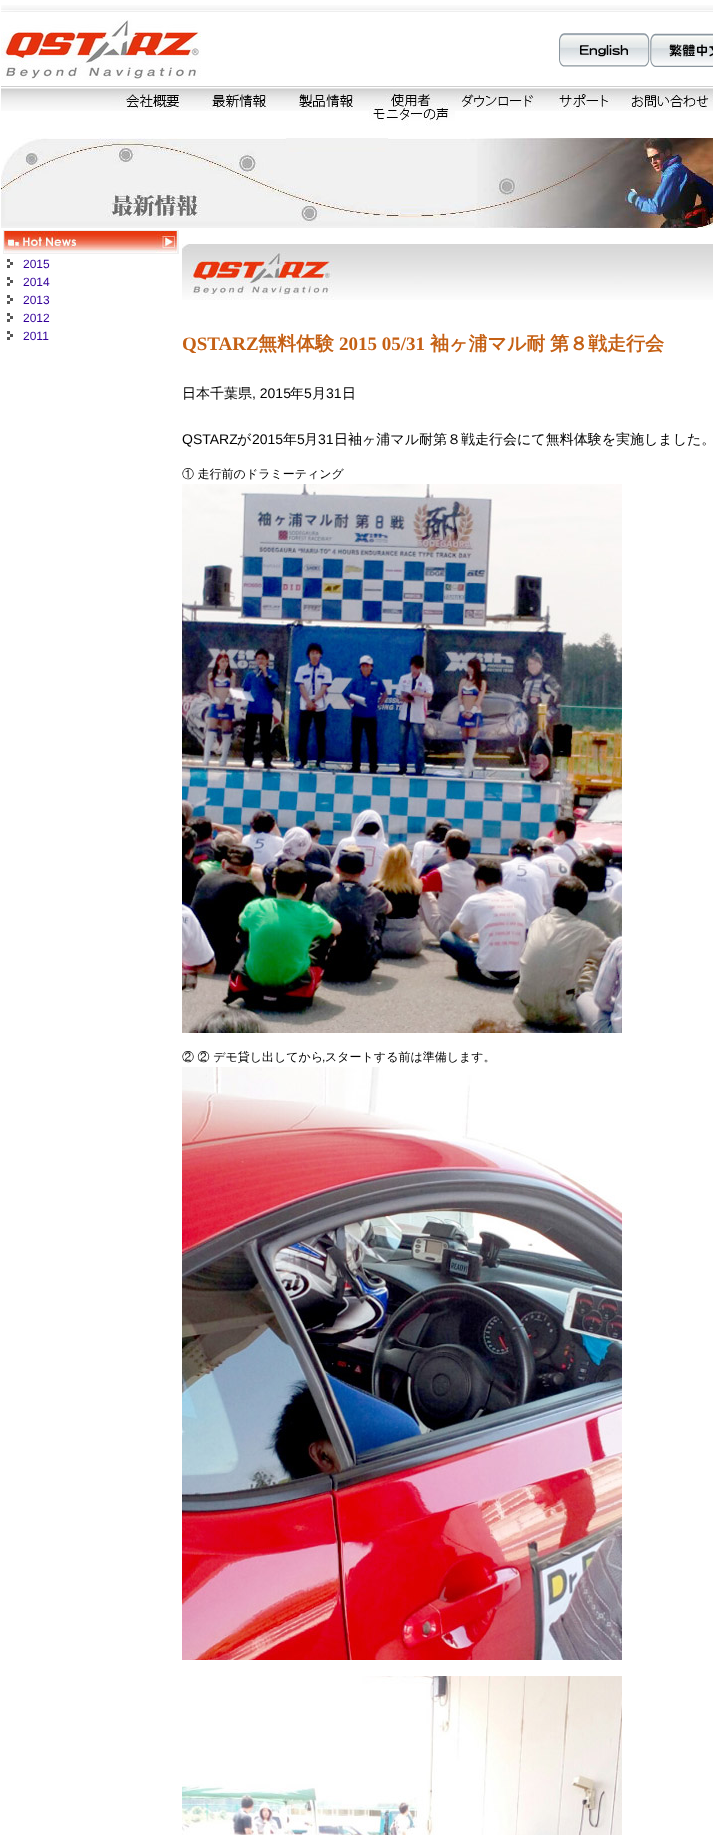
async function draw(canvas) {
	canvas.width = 713;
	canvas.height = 1835;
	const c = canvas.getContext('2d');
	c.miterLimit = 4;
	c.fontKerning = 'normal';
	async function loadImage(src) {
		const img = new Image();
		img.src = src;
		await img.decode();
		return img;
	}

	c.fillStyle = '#fff';
	c.fillRect(0, 0, 713, 1835);
	c.drawImage(await loadImage('img1.png'), 1, 5, 712, 7);
	c.drawImage(await loadImage('img2.png'), 1, 19, 200, 61);
	c.drawImage(await loadImage('img3.png'), 559, 33, 91, 34);
	c.drawImage(await loadImage('img4.png'), 650, 33, 63, 34);
	c.drawImage(await loadImage('img5.png'), 1, 86, 110, 25);
	c.drawImage(await loadImage('img6.png'), 111, 86, 86, 25);
	c.drawImage(await loadImage('img7.png'), 197, 86, 86, 25);
	c.drawImage(await loadImage('img8.png'), 283, 86, 86, 25);
	c.drawImage(await loadImage('img9.png'), 369, 86, 86, 40);
	c.drawImage(await loadImage('img10.png'), 455, 86, 86, 25);
	c.drawImage(await loadImage('img11.png'), 541, 86, 86, 25);
	c.drawImage(await loadImage('img12.png'), 627, 86, 86, 25);
	c.drawImage(await loadImage('img13.png'), 1, 138, 712, 90);
	c.fillStyle = '#efefef';
	c.fillRect(3, 230, 176, 24);
	c.drawImage(await loadImage('img14.png'), 4, 231, 173, 22);
	c.drawImage(await loadImage('img15.png'), 7, 259, 6, 9);
	c.font = '12px Liberation Sans';
	c.fillStyle = '#309';
	c.fillText('2015', 23, 268);
	c.drawImage(await loadImage('img15.png'), 7, 277, 6, 9);
	c.fillText('2014', 23, 286);
	c.drawImage(await loadImage('img15.png'), 7, 295, 6, 9);
	c.fillText('2013', 23, 304);
	c.drawImage(await loadImage('img15.png'), 7, 313, 6, 9);
	c.fillText('2012', 23, 322);
	c.drawImage(await loadImage('img15.png'), 7, 331, 6, 9);
	c.fillText('2011', 23, 340);
	c.drawImage(await loadImage('img16.png'), 182, 244, 531, 56);
	c.font = 'bold 19px Liberation Serif';
	c.fillStyle = '#c56014';
	c.fillText('QSTARZ', 182, 350);
	c.font = 'bold 19px WenQuanYi Zen Hei';
	c.fillText('無料体験', 258, 350);
	c.font = 'bold 19px Liberation Serif';
	c.fillText('2015 05/31', 339, 350);
	c.font = 'bold 19px WenQuanYi Zen Hei';
	c.fillText('袖ヶ浦マル耐', 430, 350);
	c.fillText('第８戦走行会', 550, 350);
	c.font = '500 14px WenQuanYi Zen Hei';
	c.fillStyle = '#000';
	c.fillText('日本千葉県', 182, 398);
	c.font = '14px Liberation Sans';
	c.fillText(', 2015', 252, 398);
	c.font = '500 14px WenQuanYi Zen Hei';
	c.fillText('年', 290, 398);
	c.font = '14px Liberation Sans';
	c.fillText('5', 304, 398);
	c.font = '500 14px WenQuanYi Zen Hei';
	c.fillText('月', 312, 398);
	c.font = '14px Liberation Sans';
	c.fillText('31', 326, 398);
	c.font = '500 14px WenQuanYi Zen Hei';
	c.fillText('日', 342, 398);
	c.font = '14px Liberation Sans';
	c.fillText('QSTARZ', 182, 444);
	c.font = '500 14px WenQuanYi Zen Hei';
	c.fillText('が', 237, 444);
	c.font = '14px Liberation Sans';
	c.fillText('2015', 252, 444);
	c.font = '500 14px WenQuanYi Zen Hei';
	c.fillText('年', 283, 444);
	c.font = '14px Liberation Sans';
	c.fillText('5', 297, 444);
	c.font = '500 14px WenQuanYi Zen Hei';
	c.fillText('月', 304, 444);
	c.font = '14px Liberation Sans';
	c.fillText('31', 318, 444);
	c.font = '500 14px WenQuanYi Zen Hei';
	c.fillText('日袖ヶ浦マル耐第８戦走行会にて無料体験を実施しました。', 334, 444);
	c.font = '500 12px WenQuanYi Zen Hei';
	c.fillText('① 走行前のドラミーティング', 182, 478);
	c.drawImage(await loadImage('img17.png'), 182, 484, 440, 549);
	c.fillText('② ② デモ貸し出してから', 182, 1061);
	c.font = '12px Liberation Sans';
	c.fillText(',', 322, 1061);
	c.font = '500 12px WenQuanYi Zen Hei';
	c.fillText('スタートする前は準備します。', 325, 1061);
	c.drawImage(await loadImage('img18.png'), 182, 1067, 440, 593);
	c.drawImage(await loadImage('img19.png'), 182, 1676, 440, 159);
}

draw(document.querySelector('canvas'));
